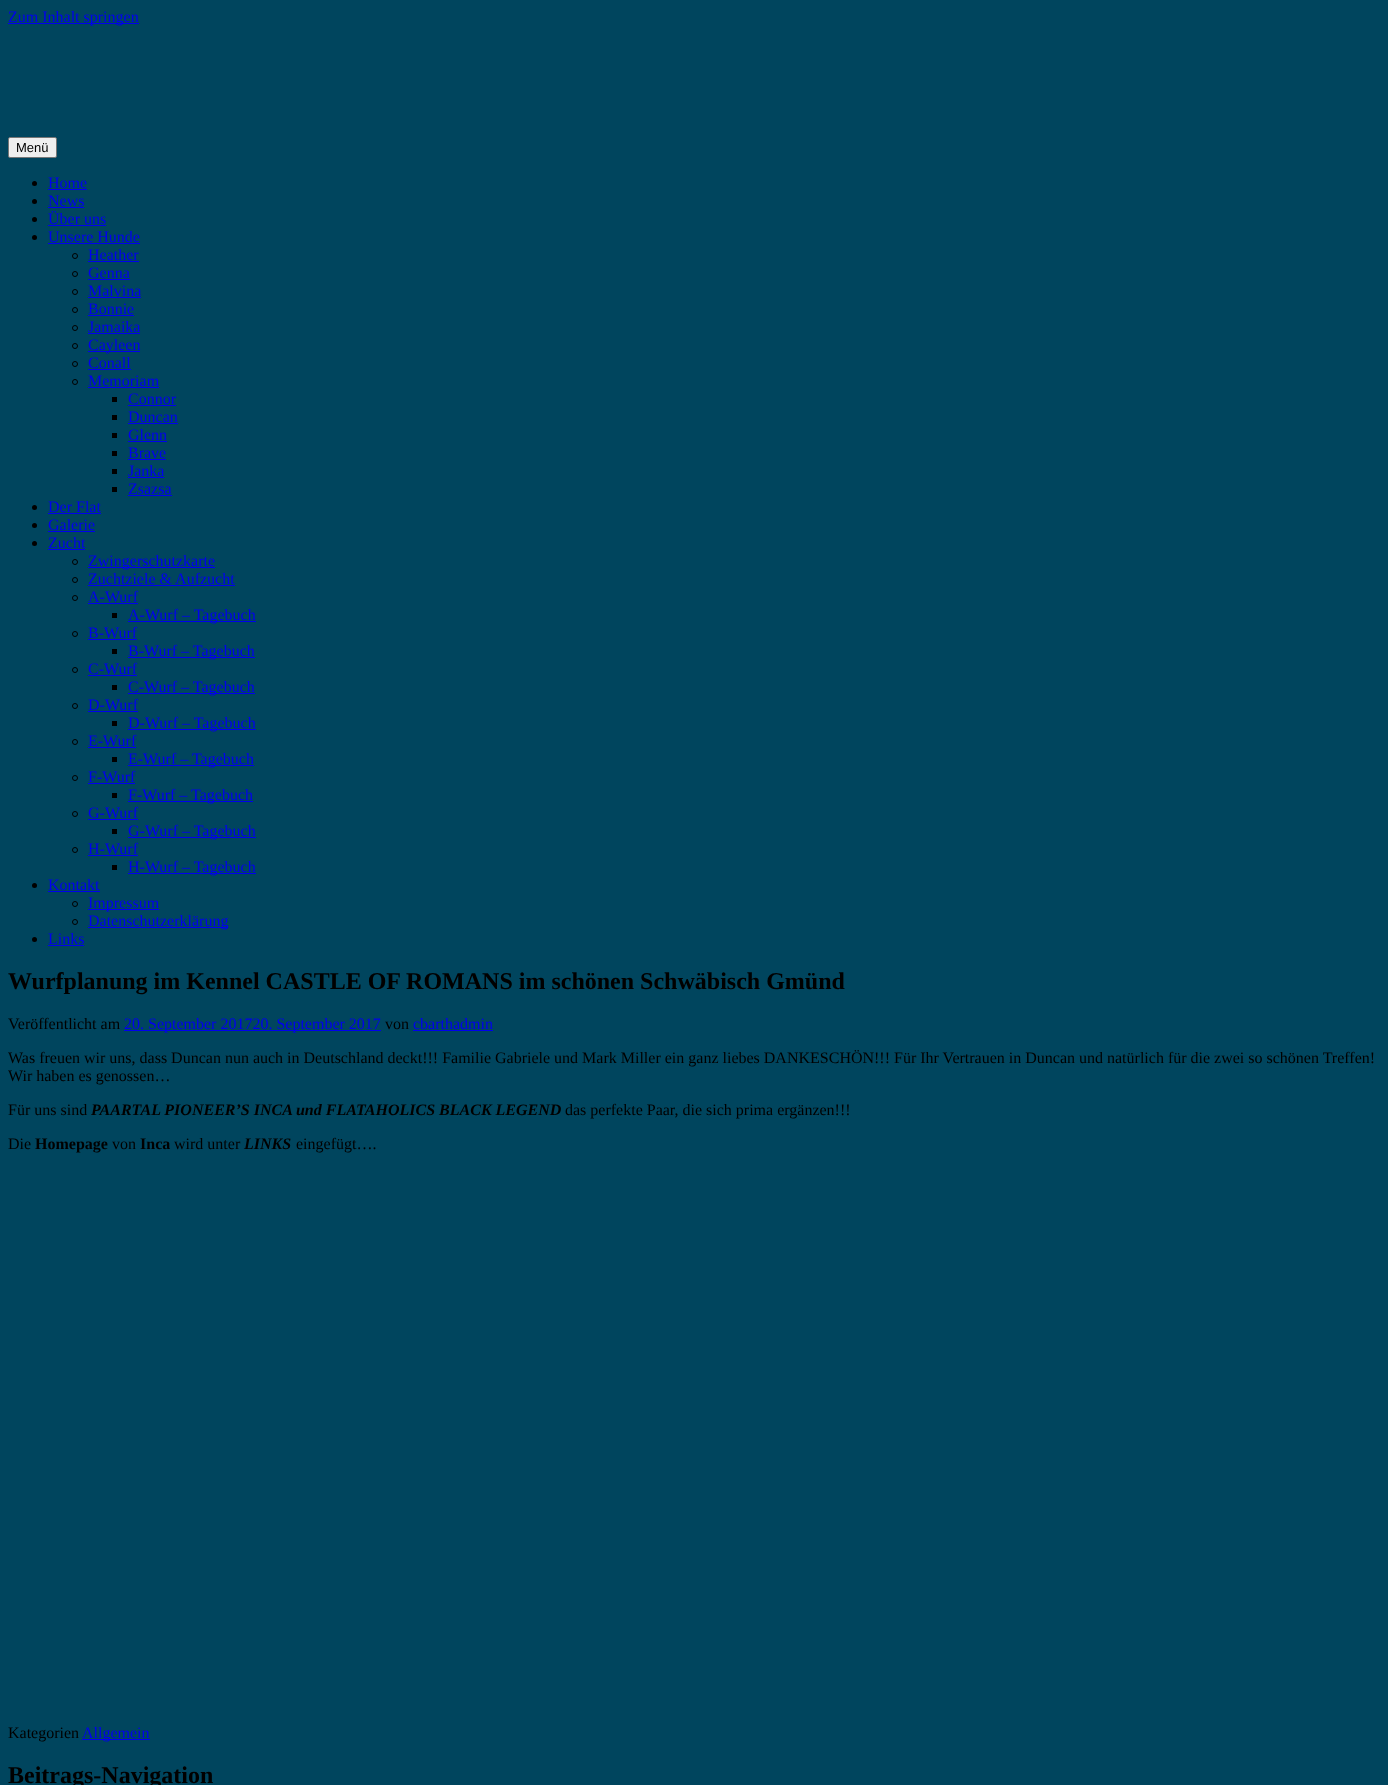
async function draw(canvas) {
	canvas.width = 1388;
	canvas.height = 1785;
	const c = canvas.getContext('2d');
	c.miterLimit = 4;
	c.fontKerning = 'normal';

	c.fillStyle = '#00455e';
	c.fillRect(0, 0, 1388, 1785);
	c.fillStyle = '#00e';
	c.fillRect(8, 23, 131, 1);
	c.font = '16px Liberation Serif';
	c.fillText('Zum Inhalt springen', 8, 22);
	c.fillStyle = '#efefef';
	c.beginPath();
	c.roundRect(8.5, 137.5, 48, 20, 1.5);
	c.fill();
	c.strokeStyle = '#767676';
	c.stroke();
	c.font = '13px Liberation Sans';
	c.fillStyle = '#000';
	c.fillText('Menü', 16, 152);
	c.beginPath();
	c.arc(34.5, 183.5, 2.5, 0, 2 * Math.PI);
	c.fill();
	c.font = '16px Liberation Serif';
	c.fillStyle = '#00e';
	c.fillText('Home', 48, 188);
	c.fillRect(48, 189, 39, 1);
	c.fillStyle = '#000';
	c.beginPath();
	c.arc(34.5, 201.5, 2.5, 0, 2 * Math.PI);
	c.fill();
	c.fillStyle = '#00e';
	c.fillText('News', 48, 206);
	c.fillRect(48, 207, 36, 1);
	c.fillStyle = '#000';
	c.beginPath();
	c.arc(34.5, 219.5, 2.5, 0, 2 * Math.PI);
	c.fill();
	c.fillStyle = '#00e';
	c.fillText('Über uns', 48, 224);
	c.fillRect(48, 225, 58, 1);
	c.fillStyle = '#000';
	c.beginPath();
	c.arc(34.5, 237.5, 2.5, 0, 2 * Math.PI);
	c.fill();
	c.fillStyle = '#00e';
	c.fillText('Unsere Hunde', 48, 242);
	c.fillRect(48, 243, 92, 1);
	c.beginPath();
	c.arc(75, 256, 2.5, 0, 2 * Math.PI);
	c.strokeStyle = '#000';
	c.stroke();
	c.fillText('Heather', 88, 260);
	c.fillRect(88, 261, 51, 1);
	c.beginPath();
	c.arc(75, 274, 2.5, 0, 2 * Math.PI);
	c.stroke();
	c.fillText('Genna', 88, 278);
	c.fillRect(88, 279, 42, 1);
	c.beginPath();
	c.arc(75, 292, 2.5, 0, 2 * Math.PI);
	c.stroke();
	c.fillText('Malvina', 88, 296);
	c.fillRect(88, 297, 53, 1);
	c.beginPath();
	c.arc(75, 310, 2.5, 0, 2 * Math.PI);
	c.stroke();
	c.fillText('Bonnie', 88, 314);
	c.fillRect(88, 315, 46, 1);
	c.beginPath();
	c.arc(75, 328, 2.5, 0, 2 * Math.PI);
	c.stroke();
	c.fillText('Jamaika', 88, 332);
	c.fillRect(88, 333, 52, 1);
	c.beginPath();
	c.arc(75, 346, 2.5, 0, 2 * Math.PI);
	c.stroke();
	c.fillRect(88, 351, 52, 1);
	c.fillText('Cayleen', 88, 350);
	c.beginPath();
	c.arc(75, 364, 2.5, 0, 2 * Math.PI);
	c.stroke();
	c.fillText('Conall', 88, 368);
	c.fillRect(88, 369, 43, 1);
	c.beginPath();
	c.arc(75, 382, 2.5, 0, 2 * Math.PI);
	c.stroke();
	c.fillText('Memoriam', 88, 386);
	c.fillRect(88, 387, 71, 1);
	c.fillStyle = '#000';
	c.fillRect(112, 397, 5, 5);
	c.fillStyle = '#00e';
	c.fillText('Connor', 128, 404);
	c.fillRect(128, 405, 48, 1);
	c.fillStyle = '#000';
	c.fillRect(112, 415, 5, 5);
	c.fillStyle = '#00e';
	c.fillText('Duncan', 128, 422);
	c.fillRect(128, 423, 50, 1);
	c.fillStyle = '#000';
	c.fillRect(112, 433, 5, 5);
	c.fillStyle = '#00e';
	c.fillText('Glenn', 128, 440);
	c.fillRect(128, 441, 39, 1);
	c.fillStyle = '#000';
	c.fillRect(112, 451, 5, 5);
	c.fillStyle = '#00e';
	c.fillText('Brave', 128, 458);
	c.fillRect(128, 459, 38, 1);
	c.fillStyle = '#000';
	c.fillRect(112, 469, 5, 5);
	c.fillStyle = '#00e';
	c.fillText('Janka', 128, 476);
	c.fillRect(128, 477, 36, 1);
	c.fillStyle = '#000';
	c.fillRect(112, 487, 5, 5);
	c.fillStyle = '#00e';
	c.fillText('Zsazsa', 128, 494);
	c.fillRect(128, 495, 44, 1);
	c.fillStyle = '#000';
	c.beginPath();
	c.arc(34.5, 507.5, 2.5, 0, 2 * Math.PI);
	c.fill();
	c.fillStyle = '#00e';
	c.fillText('Der Flat', 48, 512);
	c.fillRect(48, 513, 53, 1);
	c.fillStyle = '#000';
	c.beginPath();
	c.arc(34.5, 525.5, 2.5, 0, 2 * Math.PI);
	c.fill();
	c.fillStyle = '#00e';
	c.fillText('Galerie', 48, 530);
	c.fillRect(48, 531, 47, 1);
	c.fillStyle = '#000';
	c.beginPath();
	c.arc(34.5, 543.5, 2.5, 0, 2 * Math.PI);
	c.fill();
	c.fillStyle = '#00e';
	c.fillText('Zucht', 48, 548);
	c.fillRect(48, 549, 37, 1);
	c.beginPath();
	c.arc(75, 562, 2.5, 0, 2 * Math.PI);
	c.stroke();
	c.fillRect(88, 567, 127, 1);
	c.fillText('Zwingerschutzkarte', 88, 566);
	c.beginPath();
	c.arc(75, 580, 2.5, 0, 2 * Math.PI);
	c.stroke();
	c.fillText('Zuchtziele & Aufzucht', 88, 584);
	c.fillRect(88, 585, 147, 1);
	c.beginPath();
	c.arc(75, 598, 2.5, 0, 2 * Math.PI);
	c.stroke();
	c.fillText('A-Wurf', 88, 602);
	for (const [x, y, w, h, color] of [
		[88, 603, 50, 1, '#00e'],
		[112, 613, 5, 5, '#000'],
		[128, 621, 128, 1, '#00e'],
	]) {
		c.fillStyle = color;
		c.fillRect(x, y, w, h);
	}
	c.fillText('A-Wurf – Tagebuch', 128, 620);
	c.beginPath();
	c.arc(75, 634, 2.5, 0, 2 * Math.PI);
	c.stroke();
	c.fillText('B-Wurf', 88, 638);
	for (const [x, y, w, h, color] of [
		[88, 639, 49, 1, '#00e'],
		[112, 649, 5, 5, '#000'],
		[128, 657, 127, 1, '#00e'],
	]) {
		c.fillStyle = color;
		c.fillRect(x, y, w, h);
	}
	c.fillText('B-Wurf – Tagebuch', 128, 656);
	c.beginPath();
	c.arc(75, 670, 2.5, 0, 2 * Math.PI);
	c.stroke();
	c.fillText('C-Wurf', 88, 674);
	for (const [x, y, w, h, color] of [
		[88, 675, 49, 1, '#00e'],
		[112, 685, 5, 5, '#000'],
		[128, 693, 127, 1, '#00e'],
	]) {
		c.fillStyle = color;
		c.fillRect(x, y, w, h);
	}
	c.fillText('C-Wurf – Tagebuch', 128, 692);
	c.beginPath();
	c.arc(75, 706, 2.5, 0, 2 * Math.PI);
	c.stroke();
	c.fillText('D-Wurf', 88, 710);
	for (const [x, y, w, h, color] of [
		[88, 711, 50, 1, '#00e'],
		[112, 721, 5, 5, '#000'],
		[128, 729, 128, 1, '#00e'],
	]) {
		c.fillStyle = color;
		c.fillRect(x, y, w, h);
	}
	c.fillText('D-Wurf – Tagebuch', 128, 728);
	c.beginPath();
	c.arc(75, 742, 2.5, 0, 2 * Math.PI);
	c.stroke();
	c.fillText('E-Wurf', 88, 746);
	for (const [x, y, w, h, color] of [
		[88, 747, 48, 1, '#00e'],
		[112, 757, 5, 5, '#000'],
		[128, 765, 126, 1, '#00e'],
	]) {
		c.fillStyle = color;
		c.fillRect(x, y, w, h);
	}
	c.fillText('E-Wurf – Tagebuch', 128, 764);
	c.beginPath();
	c.arc(75, 778, 2.5, 0, 2 * Math.PI);
	c.stroke();
	c.fillText('F-Wurf', 88, 782);
	for (const [x, y, w, h, color] of [
		[88, 783, 47, 1, '#00e'],
		[112, 793, 5, 5, '#000'],
		[128, 801, 125, 1, '#00e'],
	]) {
		c.fillStyle = color;
		c.fillRect(x, y, w, h);
	}
	c.fillText('F-Wurf – Tagebuch', 128, 800);
	c.beginPath();
	c.arc(75, 814, 2.5, 0, 2 * Math.PI);
	c.stroke();
	c.fillText('G-Wurf', 88, 818);
	for (const [x, y, w, h, color] of [
		[88, 819, 50, 1, '#00e'],
		[112, 829, 5, 5, '#000'],
		[128, 837, 128, 1, '#00e'],
	]) {
		c.fillStyle = color;
		c.fillRect(x, y, w, h);
	}
	c.fillText('G-Wurf – Tagebuch', 128, 836);
	c.beginPath();
	c.arc(75, 850, 2.5, 0, 2 * Math.PI);
	c.stroke();
	c.fillText('H-Wurf', 88, 854);
	for (const [x, y, w, h, color] of [
		[88, 855, 50, 1, '#00e'],
		[112, 865, 5, 5, '#000'],
		[128, 873, 128, 1, '#00e'],
	]) {
		c.fillStyle = color;
		c.fillRect(x, y, w, h);
	}
	c.fillText('H-Wurf – Tagebuch', 128, 872);
	c.fillStyle = '#000';
	c.beginPath();
	c.arc(34.5, 885.5, 2.5, 0, 2 * Math.PI);
	c.fill();
	c.fillStyle = '#00e';
	c.fillText('Kontakt', 48, 890);
	c.fillRect(48, 891, 52, 1);
	c.beginPath();
	c.arc(75, 904, 2.5, 0, 2 * Math.PI);
	c.stroke();
	c.fillRect(88, 909, 71, 1);
	c.fillText('Impressum', 88, 908);
	c.beginPath();
	c.arc(75, 922, 2.5, 0, 2 * Math.PI);
	c.stroke();
	c.fillRect(88, 927, 140, 1);
	c.fillText('Datenschutzerklärung', 88, 926);
	c.fillStyle = '#000';
	c.beginPath();
	c.arc(34.5, 939.5, 2.5, 0, 2 * Math.PI);
	c.fill();
	c.fillStyle = '#00e';
	c.fillText('Links', 48, 944);
	c.fillRect(48, 945, 36, 1);
	c.font = 'bold 24px Liberation Serif';
	c.fillStyle = '#000';
	c.fillText('Wurfplanung im Kennel CASTLE OF ROMANS im schönen Schwäbisch Gmünd', 8, 989);
	c.font = '16px Liberation Serif';
	c.fillText('Veröffentlicht am', 8, 1029);
	c.fillStyle = '#00e';
	c.fillRect(124, 1030, 257, 1);
	c.fillText('20. September 201720. September 2017', 124, 1029);
	c.fillStyle = '#000';
	c.fillText('von', 385, 1029);
	c.fillStyle = '#00e';
	c.fillRect(413, 1030, 80, 1);
	c.fillText('cbarthadmin', 413, 1029);
	c.fillStyle = '#000';
	for (const [text, x, y] of [
		['Was freuen wir uns, dass Duncan nun auch in Deutschland deckt!!! Familie Gabriele und Mark Miller ein ganz liebes DANKESCHÖN!!! Für Ihr Vertrauen in Duncan und natürlich für die zwei so schönen Treffen!', 8, 1063],
		['Wir haben es genossen…', 8, 1081],
		['Für uns sind', 8, 1115],
	]) {
		c.fillText(text, x, y);
	}
	c.font = 'italic bold 16px Liberation Serif';
	c.fillText('PAARTAL PIONEER’S INCA und FLATAHOLICS BLACK LEGEND', 91, 1115);
	c.font = '16px Liberation Serif';
	c.fillText('das perfekte Paar, die sich prima ergänzen!!!', 565, 1115);
	c.fillText('Die', 8, 1149);
	c.font = 'bold 16px Liberation Serif';
	c.fillText('Homepage', 35, 1149);
	c.font = '16px Liberation Serif';
	c.fillText('von', 112, 1149);
	c.font = 'bold 16px Liberation Serif';
	c.fillText('Inca', 140, 1149);
	c.font = '16px Liberation Serif';
	c.fillText('wird unter', 174, 1149);
	c.font = 'italic bold 16px Liberation Serif';
	c.fillText('LINKS', 244, 1149);
	c.font = '16px Liberation Serif';
	c.fillText('eingefügt….', 296, 1149);
	c.fillText('Kategorien', 8, 1738);
	c.fillStyle = '#00e';
	c.fillRect(82, 1739, 68, 1);
	c.fillText('Allgemein', 82, 1738);
	c.font = 'bold 24px Liberation Serif';
	c.fillStyle = '#000';
	c.fillText('Beitrags-Navigation', 8, 1783);
}

draw(document.querySelector('canvas'));
